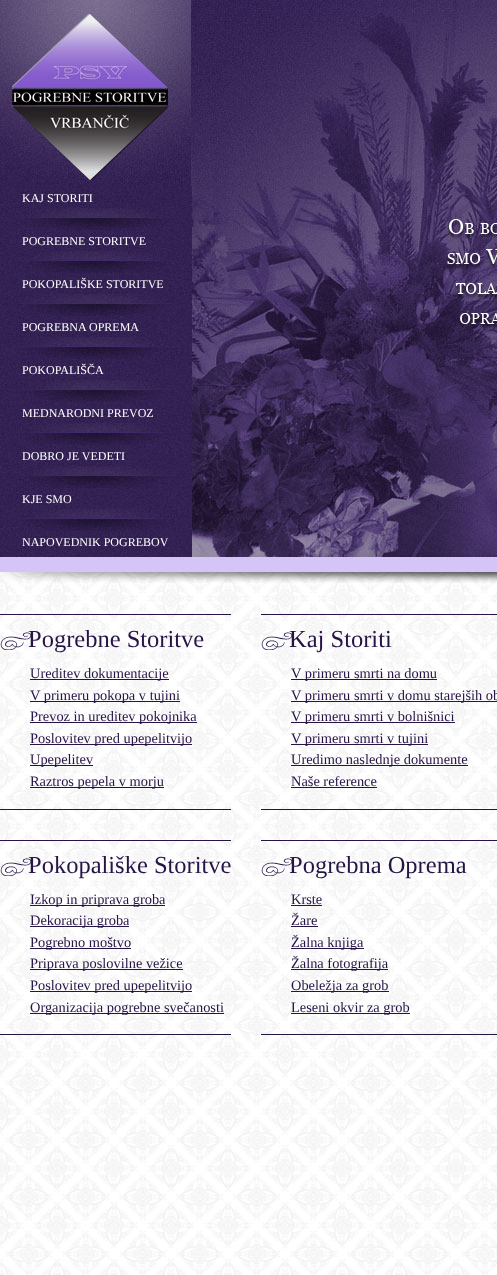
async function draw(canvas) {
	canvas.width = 497;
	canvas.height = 1275;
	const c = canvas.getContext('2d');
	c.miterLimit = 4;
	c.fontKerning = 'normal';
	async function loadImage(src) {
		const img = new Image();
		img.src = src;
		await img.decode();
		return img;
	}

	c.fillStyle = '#fff';
	c.fillRect(0, 0, 497, 1275);
	c.drawImage(await loadImage('img1.png'), 0, 572, 497, 703);
	c.drawImage(await loadImage('img2.png'), 0, 186, 192, 371);
	c.drawImage(await loadImage('img3.png'), 0, 0, 192, 186);
	c.font = '12px Liberation Serif';
	c.fillText('KAJ STORITI', 22, 202);
	c.drawImage(await loadImage('img4.png'), 17, 208, 159, 22);
	c.fillText('POGREBNE STORITVE', 22, 245);
	c.drawImage(await loadImage('img5.png'), 18, 251, 157, 22);
	c.fillText('POKOPALIŠKE STORITVE', 22, 288);
	c.drawImage(await loadImage('img6.png'), 17, 294, 158, 22);
	c.fillText('POGREBNA OPREMA', 22, 331);
	c.drawImage(await loadImage('img7.png'), 16, 337, 159, 22);
	c.fillText('POKOPALIŠČA', 22, 374);
	c.drawImage(await loadImage('img8.png'), 16, 380, 161, 22);
	c.fillText('MEDNARODNI PREVOZ', 22, 417);
	c.drawImage(await loadImage('img9.png'), 18, 423, 159, 22);
	c.fillText('DOBRO JE VEDETI', 22, 460);
	c.drawImage(await loadImage('img10.png'), 17, 466, 159, 22);
	c.fillText('KJE SMO', 22, 503);
	c.drawImage(await loadImage('img11.png'), 16, 509, 163, 22);
	c.fillText('NAPOVEDNIK POGREBOV', 22, 546);
	c.drawImage(await loadImage('img12.png'), 192, 0, 305, 557);
	c.fillStyle = '#d4c5f6';
	c.fillRect(0, 557, 497, 15);
	c.drawImage(await loadImage('img13.png'), 0, 572, 497, 11);
	c.fillStyle = '#271447';
	c.fillRect(0, 614, 231, 1);
	c.fillRect(0, 809, 231, 1);
	c.drawImage(await loadImage('img14.png'), 0, 632, 32, 18);
	c.font = '24.5px Liberation Serif';
	c.fillText('Pogrebne Storitve', 28, 647);
	c.fillRect(30, 679, 139, 1);
	c.font = '14.4px Liberation Serif';
	c.fillText('Ureditev dokumentacije', 30, 678);
	c.fillRect(30, 701, 150, 1);
	c.fillText('V primeru pokopa v tujini', 30, 700);
	c.fillRect(30, 722, 167, 1);
	c.fillText('Prevoz in ureditev pokojnika', 30, 721);
	c.fillRect(30, 744, 162, 1);
	c.fillText('Poslovitev pred upepelitvijo', 30, 743);
	c.fillRect(30, 765, 63, 1);
	c.fillText('Upepelitev', 30, 764);
	c.fillRect(30, 787, 134, 1);
	c.fillText('Raztros pepela v morju', 30, 786);
	c.fillRect(0, 840, 231, 1);
	c.fillRect(0, 1034, 231, 1);
	c.drawImage(await loadImage('img15.png'), 0, 858, 32, 18);
	c.font = '24.5px Liberation Serif';
	c.fillText('Pokopališke Storitve', 28, 873);
	c.fillRect(30, 905, 135, 1);
	c.font = '14.4px Liberation Serif';
	c.fillText('Izkop in priprava groba', 30, 904);
	c.fillRect(30, 926, 99, 1);
	c.fillText('Dekoracija groba', 30, 925);
	c.fillRect(30, 948, 101, 1);
	c.fillText('Pogrebno moštvo', 30, 947);
	c.fillRect(30, 969, 153, 1);
	c.fillText('Priprava poslovilne vežice', 30, 968);
	c.fillRect(30, 991, 162, 1);
	c.fillText('Poslovitev pred upepelitvijo', 30, 990);
	c.fillRect(30, 1013, 194, 1);
	c.fillText('Organizacija pogrebne svečanosti', 30, 1012);
	c.fillRect(261, 614, 236, 1);
	c.fillRect(261, 809, 236, 1);
	c.drawImage(await loadImage('img16.png'), 261, 632, 32, 18);
	c.font = '24.5px Liberation Serif';
	c.fillText('Kaj Storiti', 289, 647);
	c.fillRect(291, 679, 146, 1);
	c.font = '14.4px Liberation Serif';
	c.fillText('V primeru smrti na domu', 291, 678);
	c.fillRect(291, 701, 206, 1);
	c.fillText('V primeru smrti v domu starejših ob', 291, 700);
	c.fillRect(291, 722, 164, 1);
	c.fillText('V primeru smrti v bolnišnici', 291, 721);
	c.fillRect(291, 744, 137, 1);
	c.fillText('V primeru smrti v tujini', 291, 743);
	c.fillRect(291, 765, 177, 1);
	c.fillText('Uredimo naslednje dokumente', 291, 764);
	c.fillText('Naše reference', 291, 786);
	for (const [x, y, w, h, color] of [
		[291, 787, 86, 1, '#271447'],
		[261, 840, 236, 1, '#271447'],
		[261, 1034, 236, 1, '#271447'],
	]) {
		c.fillStyle = color;
		c.fillRect(x, y, w, h);
	}
	c.drawImage(await loadImage('img17.png'), 261, 858, 32, 18);
	c.font = '24.5px Liberation Serif';
	c.fillText('Pogrebna Oprema', 289, 873);
	c.font = '14.4px Liberation Serif';
	c.fillText('Krste', 291, 904);
	c.fillRect(291, 905, 31, 1);
	c.fillText('Žare', 291, 925);
	c.fillRect(291, 926, 27, 1);
	c.fillRect(291, 948, 73, 1);
	c.fillText('Žalna knjiga', 291, 947);
	c.fillRect(291, 969, 97, 1);
	c.fillText('Žalna fotografija', 291, 968);
	c.fillRect(291, 991, 98, 1);
	c.fillText('Obeležja za grob', 291, 990);
	c.fillRect(291, 1013, 119, 1);
	c.fillText('Leseni okvir za grob', 291, 1012);
}

draw(document.querySelector('canvas'));
